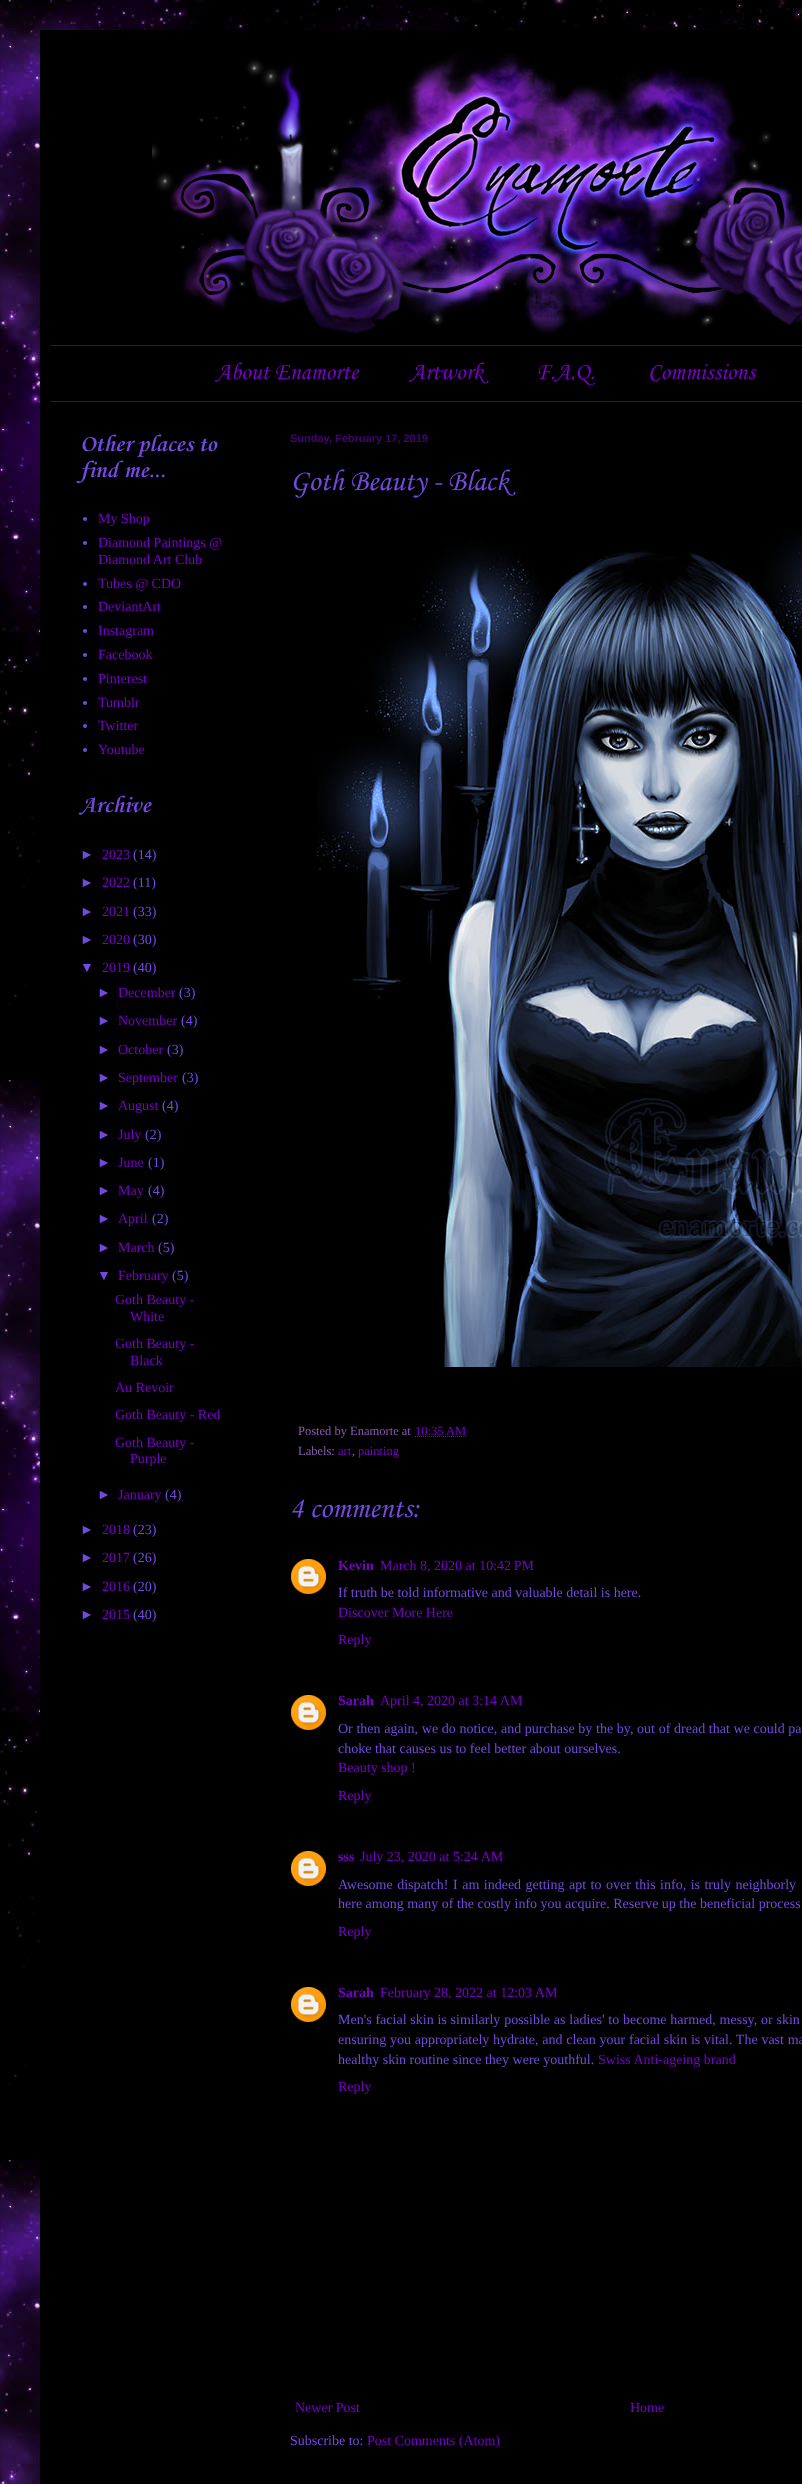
async function draw(canvas) {
	canvas.width = 802;
	canvas.height = 2484;
	const c = canvas.getContext('2d');
	c.miterLimit = 4;
	c.fontKerning = 'normal';
	async function loadImage(src) {
		const img = new Image();
		img.src = src;
		await img.decode();
		return img;
	}

	c.fillStyle = '#fff';
	c.fillRect(0, 0, 802, 2484);
	c.drawImage(await loadImage('img1.png'), 0, 0, 802, 2484);
	c.fillStyle = '#00000026';
	c.filter = 'blur(20px)';
	c.beginPath();
	c.rect(40, 30, 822, 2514);
	c.fill();
	c.filter = 'none';
	c.fillStyle = '#000';
	c.fillRect(40, 30, 762, 2454);
	c.drawImage(await loadImage('img2.png'), 152, 52, 650, 282);
	c.fillStyle = '#45017b';
	c.fillRect(50, 345, 752, 1);
	c.fillRect(50, 401, 752, 1);
	c.font = '24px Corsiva';
	c.fillStyle = '#7800c9';
	for (const [text, x, y] of [
		['About Enamorte', 216, 379],
		['Artwork', 410, 379],
		['F.A.Q.', 536, 379],
		['Commissions', 648, 379],
	]) {
		c.fillText(text, x, y);
	}
	c.font = 'bold 24px Corsiva';
	c.fillStyle = '#7449e1';
	c.fillText('Other places to', 80, 451);
	c.fillText('find me...', 80, 477);
	c.beginPath();
	c.arc(85, 519, 2, 0, 2 * Math.PI);
	c.fill();
	c.font = '14px Liberation Serif';
	c.fillStyle = '#7800c9';
	c.fillText('My Shop', 98, 523);
	c.fillStyle = '#7449e1';
	c.beginPath();
	c.arc(85, 543, 2, 0, 2 * Math.PI);
	c.fill();
	c.fillStyle = '#7800c9';
	c.fillText('Diamond Paintings @', 98, 547);
	c.fillText('Diamond Art Club', 98, 564);
	c.fillStyle = '#7449e1';
	c.beginPath();
	c.arc(85, 584, 2, 0, 2 * Math.PI);
	c.fill();
	c.fillStyle = '#7800c9';
	c.fillText('Tubes @ CDO', 98, 588);
	c.fillStyle = '#7449e1';
	c.beginPath();
	c.arc(85, 607, 2, 0, 2 * Math.PI);
	c.fill();
	c.fillStyle = '#7800c9';
	c.fillText('DeviantArt', 98, 611);
	c.fillStyle = '#7449e1';
	c.beginPath();
	c.arc(85, 631, 2, 0, 2 * Math.PI);
	c.fill();
	c.fillStyle = '#7800c9';
	c.fillText('Instagram', 98, 635);
	c.fillStyle = '#7449e1';
	c.beginPath();
	c.arc(85, 655, 2, 0, 2 * Math.PI);
	c.fill();
	c.fillStyle = '#7800c9';
	c.fillText('Facebook', 98, 659);
	c.fillStyle = '#7449e1';
	c.beginPath();
	c.arc(85, 679, 2, 0, 2 * Math.PI);
	c.fill();
	c.fillStyle = '#7800c9';
	c.fillText('Pinterest', 98, 683);
	c.fillStyle = '#7449e1';
	c.beginPath();
	c.arc(85, 703, 2, 0, 2 * Math.PI);
	c.fill();
	c.fillStyle = '#7800c9';
	c.fillText('Tumblr', 98, 707);
	c.fillStyle = '#7449e1';
	c.beginPath();
	c.arc(85, 726, 2, 0, 2 * Math.PI);
	c.fill();
	c.fillStyle = '#7800c9';
	c.fillText('Twitter', 98, 730);
	c.fillStyle = '#7449e1';
	c.beginPath();
	c.arc(85, 750, 2, 0, 2 * Math.PI);
	c.fill();
	c.fillStyle = '#7800c9';
	c.fillText('Youtube', 98, 754);
	c.font = 'bold 24px Corsiva';
	c.fillStyle = '#7449e1';
	c.fillText('Archive', 80, 812);
	c.font = '14px Liberation Sans';
	c.fillText('►', 80, 859);
	c.font = '14px Liberation Serif';
	c.fillStyle = '#7800c9';
	c.fillText('2023', 102, 859);
	c.fillStyle = '#7449e1';
	c.fillText('(14)', 133, 859);
	c.font = '14px Liberation Sans';
	c.fillText('►', 80, 887);
	c.font = '14px Liberation Serif';
	c.fillStyle = '#7800c9';
	c.fillText('2022', 102, 887);
	c.fillStyle = '#7449e1';
	c.fillText('(11)', 133, 887);
	c.font = '14px Liberation Sans';
	c.fillText('►', 80, 916);
	c.font = '14px Liberation Serif';
	c.fillStyle = '#7800c9';
	c.fillText('2021', 102, 916);
	c.fillStyle = '#7449e1';
	c.fillText('(33)', 133, 916);
	c.font = '14px Liberation Sans';
	c.fillText('►', 80, 944);
	c.font = '14px Liberation Serif';
	c.fillStyle = '#7800c9';
	c.fillText('2020', 102, 944);
	c.fillStyle = '#7449e1';
	c.fillText('(30)', 133, 944);
	c.font = '14px Liberation Sans';
	c.fillText('▼', 80, 972);
	c.font = '14px Liberation Serif';
	c.fillStyle = '#7800c9';
	c.fillText('2019', 102, 972);
	c.fillStyle = '#7449e1';
	c.fillText('(40)', 133, 972);
	c.font = '14px Liberation Sans';
	c.fillText('►', 97, 997);
	c.font = '14px Liberation Serif';
	c.fillStyle = '#7800c9';
	c.fillText('December', 118, 997);
	c.fillStyle = '#7449e1';
	c.fillText('(3)', 179, 997);
	c.font = '14px Liberation Sans';
	c.fillText('►', 97, 1025);
	c.font = '14px Liberation Serif';
	c.fillStyle = '#7800c9';
	c.fillText('November', 118, 1025);
	c.fillStyle = '#7449e1';
	c.fillText('(4)', 181, 1025);
	c.font = '14px Liberation Sans';
	c.fillText('►', 97, 1054);
	c.font = '14px Liberation Serif';
	c.fillStyle = '#7800c9';
	c.fillText('October', 118, 1054);
	c.fillStyle = '#7449e1';
	c.fillText('(3)', 167, 1054);
	c.font = '14px Liberation Sans';
	c.fillText('►', 97, 1082);
	c.font = '14px Liberation Serif';
	c.fillStyle = '#7800c9';
	c.fillText('September', 118, 1082);
	c.fillStyle = '#7449e1';
	c.fillText('(3)', 182, 1082);
	c.font = '14px Liberation Sans';
	c.fillText('►', 97, 1110);
	c.font = '14px Liberation Serif';
	c.fillStyle = '#7800c9';
	c.fillText('August', 118, 1110);
	c.fillStyle = '#7449e1';
	c.fillText('(4)', 162, 1110);
	c.font = '14px Liberation Sans';
	c.fillText('►', 97, 1139);
	c.font = '14px Liberation Serif';
	c.fillStyle = '#7800c9';
	c.fillText('July', 118, 1139);
	c.fillStyle = '#7449e1';
	c.fillText('(2)', 145, 1139);
	c.font = '14px Liberation Sans';
	c.fillText('►', 97, 1167);
	c.font = '14px Liberation Serif';
	c.fillStyle = '#7800c9';
	c.fillText('June', 118, 1167);
	c.fillStyle = '#7449e1';
	c.fillText('(1)', 148, 1167);
	c.font = '14px Liberation Sans';
	c.fillText('►', 97, 1195);
	c.font = '14px Liberation Serif';
	c.fillStyle = '#7800c9';
	c.fillText('May', 118, 1195);
	c.fillStyle = '#7449e1';
	c.fillText('(4)', 148, 1195);
	c.font = '14px Liberation Sans';
	c.fillText('►', 97, 1223);
	c.font = '14px Liberation Serif';
	c.fillStyle = '#7800c9';
	c.fillText('April', 118, 1223);
	c.fillStyle = '#7449e1';
	c.fillText('(2)', 152, 1223);
	c.font = '14px Liberation Sans';
	c.fillText('►', 97, 1252);
	c.font = '14px Liberation Serif';
	c.fillStyle = '#7800c9';
	c.fillText('March', 118, 1252);
	c.fillStyle = '#7449e1';
	c.fillText('(5)', 158, 1252);
	c.font = '14px Liberation Sans';
	c.fillText('▼', 97, 1280);
	c.font = '14px Liberation Serif';
	c.fillStyle = '#7800c9';
	c.fillText('February', 118, 1280);
	c.fillStyle = '#7449e1';
	c.fillText('(5)', 172, 1280);
	c.fillStyle = '#7800c9';
	for (const [text, x, y] of [
		['Goth Beauty -', 115, 1304],
		['White', 130, 1321],
		['Goth Beauty -', 115, 1348],
		['Black', 130, 1365],
		['Au Revoir', 115, 1392],
		['Goth Beauty - Red', 115, 1419],
		['Goth Beauty -', 115, 1447],
		['Purple', 130, 1463],
	]) {
		c.fillText(text, x, y);
	}
	c.font = '14px Liberation Sans';
	c.fillStyle = '#7449e1';
	c.fillText('►', 97, 1499);
	c.font = '14px Liberation Serif';
	c.fillStyle = '#7800c9';
	c.fillText('January', 118, 1499);
	c.fillStyle = '#7449e1';
	c.fillText('(4)', 165, 1499);
	c.font = '14px Liberation Sans';
	c.fillText('►', 80, 1534);
	c.font = '14px Liberation Serif';
	c.fillStyle = '#7800c9';
	c.fillText('2018', 102, 1534);
	c.fillStyle = '#7449e1';
	c.fillText('(23)', 133, 1534);
	c.font = '14px Liberation Sans';
	c.fillText('►', 80, 1562);
	c.font = '14px Liberation Serif';
	c.fillStyle = '#7800c9';
	c.fillText('2017', 102, 1562);
	c.fillStyle = '#7449e1';
	c.fillText('(26)', 133, 1562);
	c.font = '14px Liberation Sans';
	c.fillText('►', 80, 1591);
	c.font = '14px Liberation Serif';
	c.fillStyle = '#7800c9';
	c.fillText('2016', 102, 1591);
	c.fillStyle = '#7449e1';
	c.fillText('(20)', 133, 1591);
	c.font = '14px Liberation Sans';
	c.fillText('►', 80, 1619);
	c.font = '14px Liberation Serif';
	c.fillStyle = '#7800c9';
	c.fillText('2015', 102, 1619);
	c.fillStyle = '#7449e1';
	c.fillText('(40)', 133, 1619);
	c.font = 'bold 11px Liberation Sans';
	c.fillStyle = '#45017b';
	c.fillText('Sunday, February 17, 2019', 290, 442);
	c.font = '30px Corsiva';
	c.fillStyle = '#7449e1';
	c.fillText('Goth Beauty - Black', 290, 490);
	c.drawImage(await loadImage('img3.png'), 317, 531, 485, 836);
	c.font = '12.5px Liberation Serif';
	c.fillStyle = '#8c5ab4';
	c.fillText('Posted by Enamorte at', 298, 1435);
	c.fillStyle = '#7800c9';
	c.fillText('10:35 AM', 415, 1435);
	c.beginPath();
	c.moveTo(415, 1436.5);
	c.lineTo(466.5, 1436.5);
	c.strokeStyle = '#7800c9';
	c.setLineDash([1, 1]);
	c.stroke();
	c.fillStyle = '#8c5ab4';
	c.fillText('Labels:', 298, 1455);
	c.fillStyle = '#7800c9';
	c.fillText('art', 338, 1455);
	c.fillStyle = '#8c5ab4';
	c.fillText(',', 352, 1455);
	c.fillStyle = '#7800c9';
	c.fillText('painting', 358, 1455);
	c.font = '30px Corsiva';
	c.fillStyle = '#7449e1';
	c.fillText('4 comments:', 290, 1517);
	c.drawImage(await loadImage('img4.png'), 291, 1559, 35, 35);
	c.font = 'bold 14px Liberation Serif';
	c.fillStyle = '#7800c9';
	c.fillText('Kevin', 338, 1570);
	c.font = '14px Liberation Serif';
	c.fillText('March 8, 2020 at 10:42 PM', 380, 1570);
	c.fillStyle = '#7449e1';
	c.fillText('If truth be told informative and valuable detail is here.', 338, 1597);
	c.fillStyle = '#7800c9';
	c.fillText('Discover More Here', 338, 1617);
	c.fillText('Reply', 338, 1644);
	c.drawImage(await loadImage('img4.png'), 291, 1695, 35, 35);
	c.font = 'bold 14px Liberation Serif';
	c.fillText('Sarah', 338, 1705);
	c.font = '14px Liberation Serif';
	c.fillText('April 4, 2020 at 3:14 AM', 380, 1705);
	c.wordSpacing = '0.2px';
	c.fillStyle = '#7449e1';
	c.fillText('Or then again, we do notice, and purchase by the by, out of dread that we could pa', 338, 1733);
	c.wordSpacing = '0px';
	c.fillText('choke that causes us to feel better about ourselves.', 338, 1753);
	c.fillStyle = '#7800c9';
	c.fillText('Beauty shop !', 338, 1772);
	c.fillText('Reply', 338, 1800);
	c.drawImage(await loadImage('img4.png'), 291, 1851, 35, 35);
	c.font = 'bold 14px Liberation Serif';
	c.fillText('sss', 338, 1861);
	c.font = '14px Liberation Serif';
	c.fillText('July 23, 2020 at 5:24 AM', 360, 1861);
	c.wordSpacing = '1px';
	c.fillStyle = '#7449e1';
	c.fillText('Awesome dispatch! I am indeed getting apt to over this info, is truly neighborly', 338, 1889);
	c.wordSpacing = '0px';
	c.fillText('here among many of the costly info you acquire. Reserve up the beneficial process', 338, 1908);
	c.fillStyle = '#7800c9';
	c.fillText('Reply', 338, 1936);
	c.drawImage(await loadImage('img4.png'), 291, 1987, 35, 35);
	c.font = 'bold 14px Liberation Serif';
	c.fillText('Sarah', 338, 1997);
	c.font = '14px Liberation Serif';
	c.fillText('February 28, 2022 at 12:03 AM', 380, 1997);
	c.wordSpacing = '0.3px';
	c.fillStyle = '#7449e1';
	c.fillText('Men\'s facial skin is similarly possible as ladies\' to become harmed, messy, or skin', 338, 2024);
	c.wordSpacing = '0.25px';
	c.fillText('ensuring you appropriately hydrate, and clean your facial skin is vital. The vast ma', 338, 2044);
	c.wordSpacing = '0px';
	c.fillText('healthy skin routine since they were youthful.', 338, 2064);
	c.fillStyle = '#7800c9';
	for (const [text, x, y] of [
		['Swiss Anti-ageing brand', 598, 2064],
		['Reply', 338, 2091],
		['Newer Post', 295, 2412],
		['Home', 630, 2412],
	]) {
		c.fillText(text, x, y);
	}
	c.fillStyle = '#7449e1';
	c.fillText('Subscribe to:', 290, 2445);
	c.fillStyle = '#7800c9';
	c.fillText('Post Comments (Atom)', 367, 2445);
}

draw(document.querySelector('canvas'));
